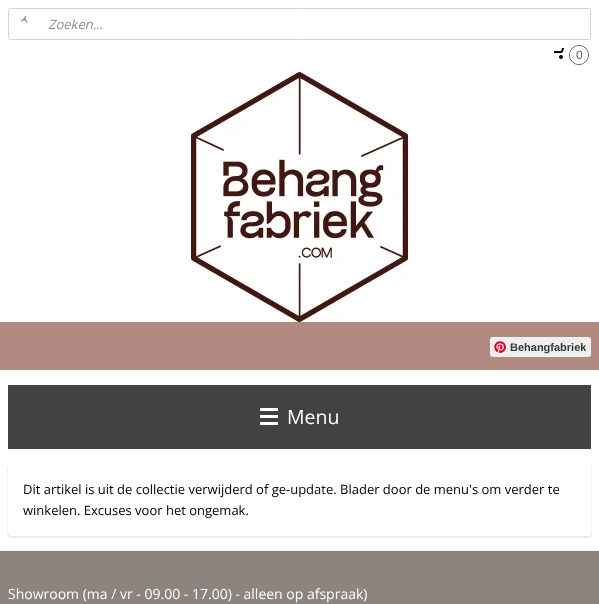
async function draw(canvas) {
	canvas.width = 599;
	canvas.height = 604;
	const c = canvas.getContext('2d');
	c.miterLimit = 4;
	c.fontKerning = 'normal';
	async function loadImage(src) {
		const img = new Image();
		img.src = src;
		await img.decode();
		return img;
	}

	c.fillStyle = '#fff';
	c.fillRect(0, 0, 599, 604);
	c.beginPath();
	c.roundRect(8.5, 8.5, 582, 31, 2.5);
	c.strokeStyle = '#d3d5d9';
	c.stroke();
	c.drawImage(await loadImage('img1.png'), 21, 16, 7, 7);
	c.font = 'italic 13px Open Sans';
	c.fillStyle = '#898c91';
	c.fillText('Zoeken...', 48, 29);
	c.drawImage(await loadImage('img2.png'), 554, 48, 10, 11);
	c.beginPath();
	c.arc(579, 55, 9.5, 0, 2 * Math.PI);
	c.strokeStyle = '#575b62';
	c.stroke();
	c.fillStyle = '#fff';
	c.beginPath();
	c.arc(579, 55, 9, 0, 2 * Math.PI);
	c.fill();
	c.font = '12px Liberation Sans';
	c.fillStyle = '#575b62';
	c.fillText('0', 576, 59);
	c.drawImage(await loadImage('img3.png'), 190, 72, 221, 250);
	c.fillStyle = '#b18a81';
	c.fillRect(0, 322, 599, 48);
	c.fillStyle = '#efefef';
	c.beginPath();
	c.roundRect(490, 337, 101, 20, 3);
	c.fill();
	c.drawImage(await loadImage('img4.png'), 493, 340, 14, 14);
	c.font = 'bold 11px Liberation Sans';
	c.fillStyle = '#363636';
	c.fillText('Behangfabriek', 510, 351);
	for (const [x, y, w, h, color] of [
		[8, 385, 583, 64, '#424242'],
		[260, 415, 18, 3, '#fff'],
		[260, 408, 18, 3, '#fff'],
		[260, 422, 18, 3, '#fff'],
	]) {
		c.fillStyle = color;
		c.fillRect(x, y, w, h);
	}
	c.font = '19.5px Open Sans';
	c.fillText('Menu', 287, 424);
	c.save();
	c.beginPath();
	c.moveTo(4, 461);
	c.lineTo(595, 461);
	c.lineTo(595, 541);
	c.lineTo(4, 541);
	c.closePath();
	c.moveTo(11, 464);
	c.lineTo(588, 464);
	c.bezierCurveTo(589.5, 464, 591, 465.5, 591, 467);
	c.lineTo(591, 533);
	c.bezierCurveTo(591, 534.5, 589.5, 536, 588, 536);
	c.lineTo(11, 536);
	c.bezierCurveTo(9.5, 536, 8, 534.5, 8, 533);
	c.lineTo(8, 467);
	c.bezierCurveTo(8, 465.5, 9.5, 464, 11, 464);
	c.closePath();
	c.clip('evenodd');
	c.fillStyle = '#00000026';
	c.filter = 'blur(1px)';
	c.beginPath();
	c.roundRect(8, 465, 583, 72, 3);
	c.fill();
	c.filter = 'none';
	c.restore();
	c.font = '13px Open Sans';
	c.fillStyle = '#000';
	c.fillText('Dit artikel is uit de collectie verwijderd of ge-update. Blader door de menu\'s om verder te', 23, 494);
	c.fillText('winkelen. Excuses voor het ongemak.', 23, 515);
	c.fillStyle = '#0000000d';
	c.filter = 'blur(1px)';
	c.beginPath();
	c.rect(0, 550, 599, 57);
	c.fill();
	c.filter = 'none';
	c.fillStyle = '#8c847f';
	c.fillRect(0, 551, 599, 53);
	c.font = '14px Open Sans';
	c.fillStyle = '#fff';
	c.fillText('Showroom (ma / vr - 09.00 - 17.00) - alleen op afspraak)', 8, 599);
}

draw(document.querySelector('canvas'));
